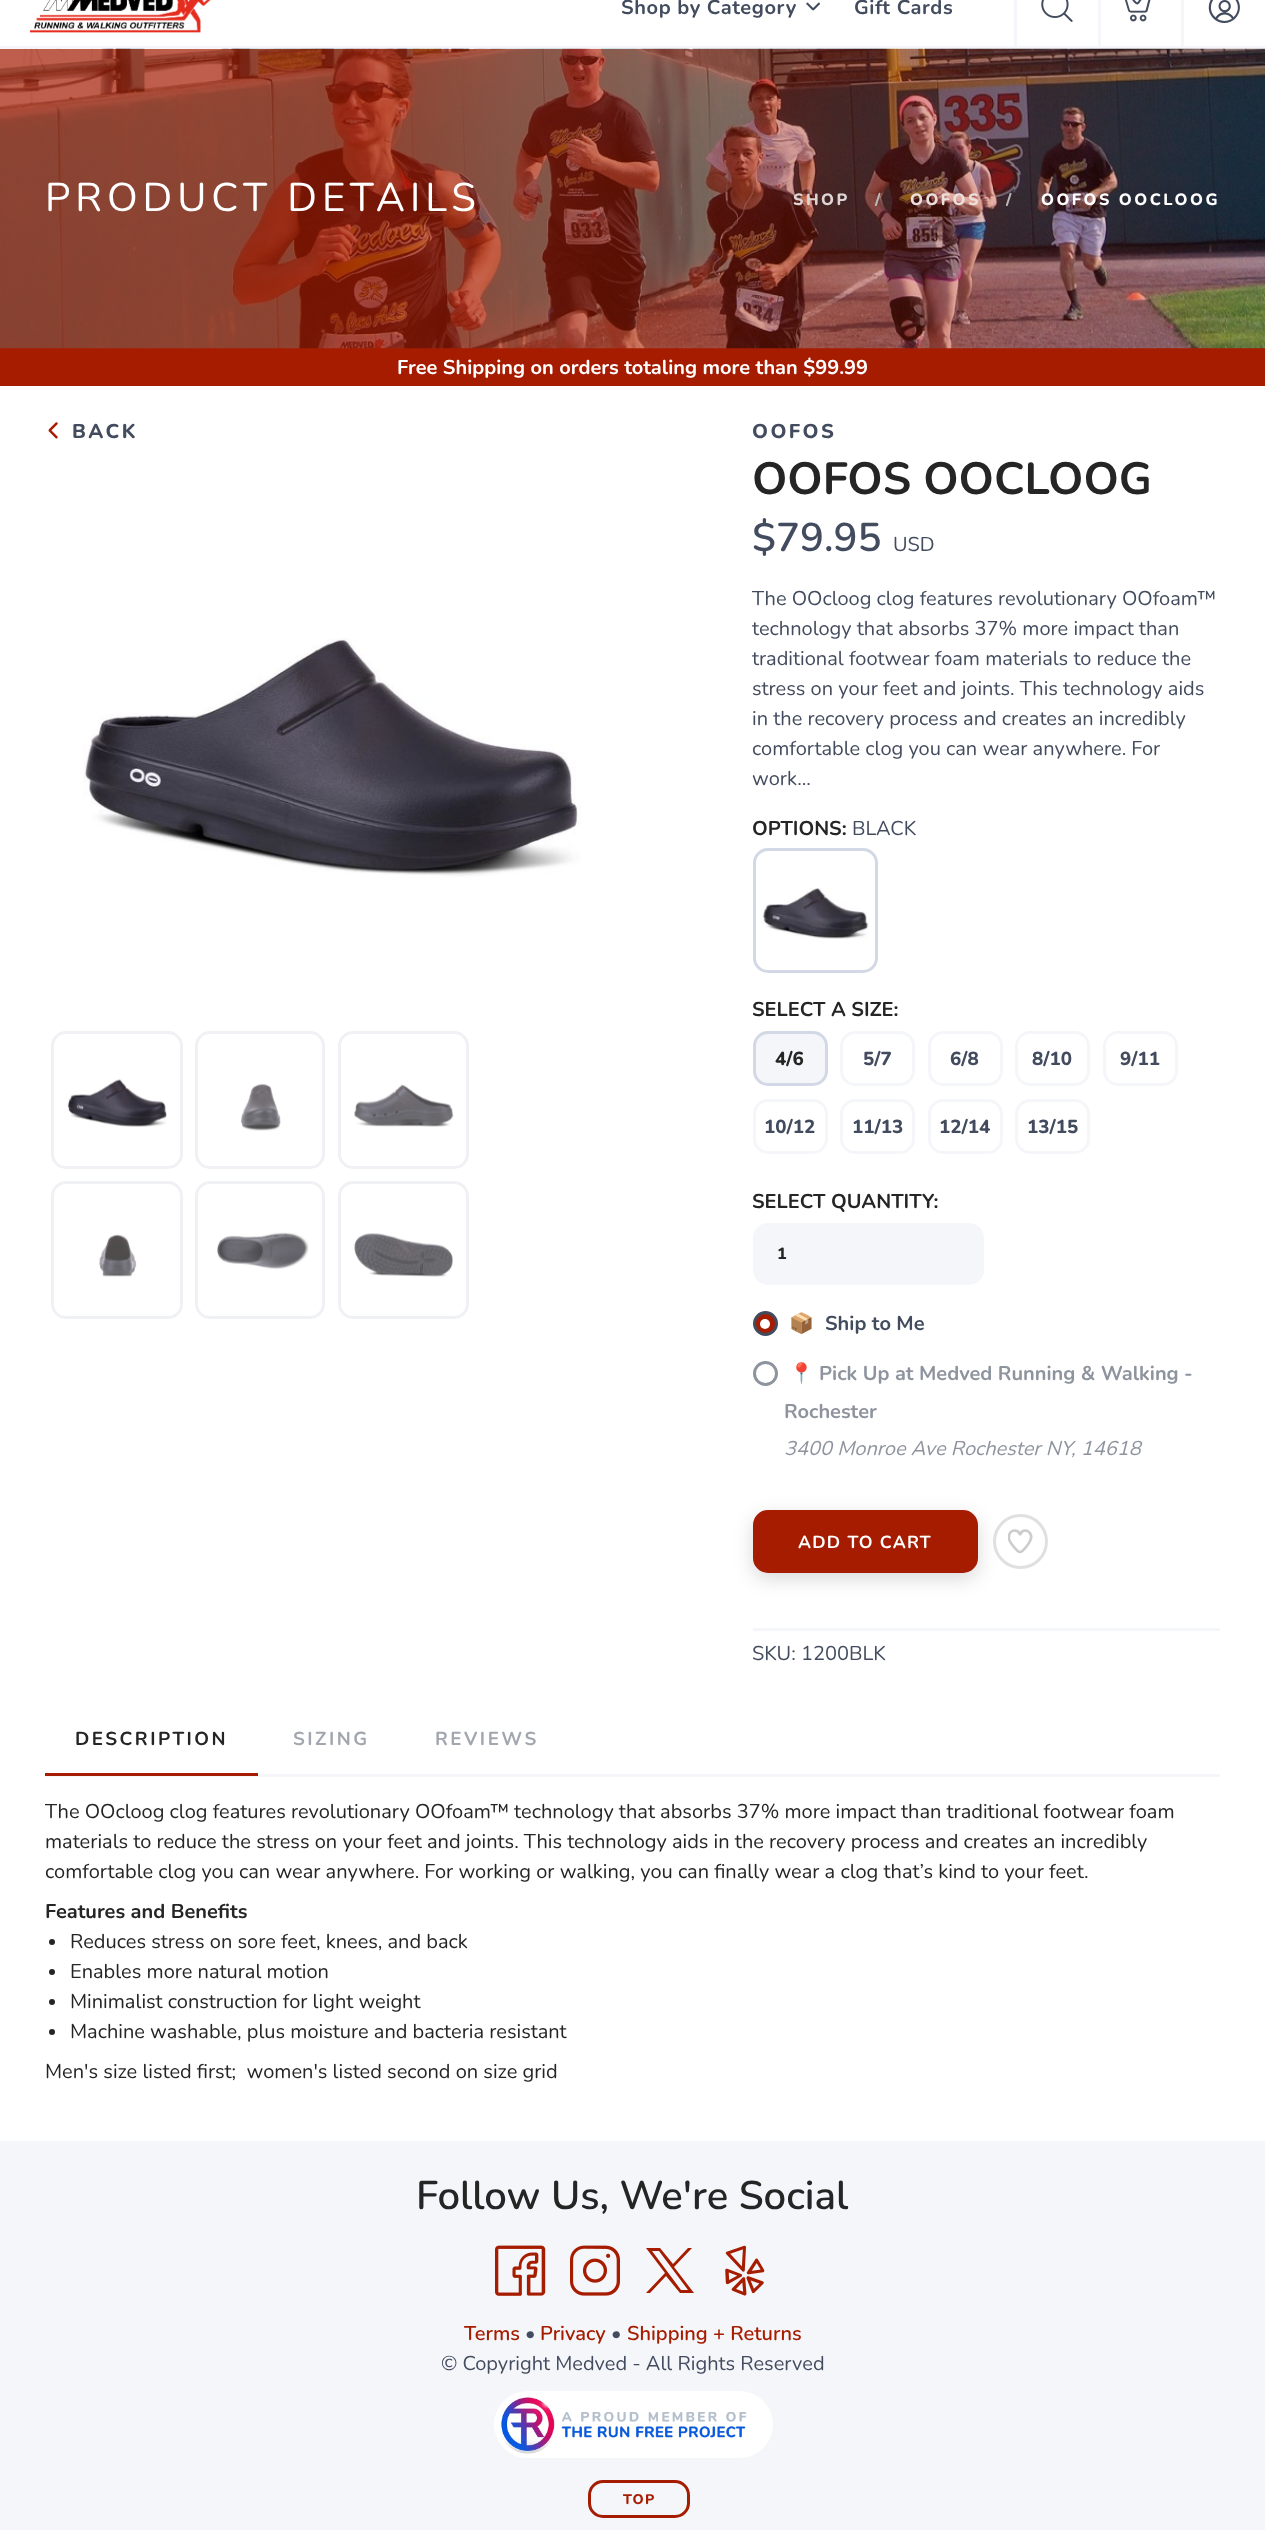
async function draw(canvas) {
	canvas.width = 1265;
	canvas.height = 2530;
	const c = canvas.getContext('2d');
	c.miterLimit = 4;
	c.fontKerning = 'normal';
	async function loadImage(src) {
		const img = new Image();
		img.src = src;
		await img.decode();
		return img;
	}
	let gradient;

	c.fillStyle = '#fff';
	c.fillRect(0, 0, 1265, 2530);
	c.fillStyle = '#f5f6fa';
	c.fillRect(0, 46, 1265, 3);
	c.drawImage(await loadImage('img1.png'), 30, 0, 181, 33);
	c.letterSpacing = '0.6px';
	c.font = 'bold 20px Nunito';
	c.fillStyle = '#434c5e';
	c.fillText('Shop by Category', 621, 14);
	c.drawImage(await loadImage('img2.png'), 806, 2, 14, 9);
	c.fillText('Gift Cards', 854, 14);
	c.fillStyle = '#f5f6fa';
	c.fillRect(1014, 0, 3, 49);
	c.drawImage(await loadImage('img3.png'), 1041, 0, 32, 22);
	c.fillRect(1098, 0, 3, 49);
	c.drawImage(await loadImage('img4.png'), 1125, 0, 26, 22);
	c.fillRect(1181, 0, 3, 49);
	c.drawImage(await loadImage('img5.png'), 1208, 0, 32, 23);
	c.fillStyle = '#a61c00';
	c.fillRect(0, 348, 1265, 38);
	c.drawImage(await loadImage('img6.png'), 0, 48, 1265, 301);
	gradient = c.createLinearGradient(0, 199, 1265, 199);
	gradient.addColorStop(0.3, '#a61c00b3');
	gradient.addColorStop(1, '#a61c0012');
	c.fillStyle = gradient;
	c.fillRect(0, 49, 1265, 300);
	c.letterSpacing = '5px';
	c.font = '40px Nunito';
	c.fillStyle = '#fff';
	c.fillText('PRODUCT DETAILS', 45, 211);
	c.letterSpacing = '2.5px';
	c.font = '800 16.25px Nunito';
	c.fillStyle = '#ded5d5';
	c.fillText('SHOP', 793, 205);
	c.fillStyle = '#bbb';
	c.fillText('/', 875, 205);
	c.fillStyle = '#ebe0de';
	c.fillText('OOFOS', 910, 205);
	c.fillStyle = '#bbb';
	c.fillText('/', 1006, 205);
	c.fillStyle = '#fff';
	c.fillText('OOFOS OOCLOOG', 1041, 205);
	c.letterSpacing = '0px';
	c.font = 'bold 20px Nunito';
	c.fillText('Free Shipping on orders totaling more than $99.99', 397, 374);
	c.drawImage(await loadImage('img7.png'), 48, 422, 10, 17);
	c.letterSpacing = '2.5px';
	c.font = '800 20px Nunito';
	c.fillStyle = '#434c5e';
	c.fillText('BACK', 72, 438);
	c.drawImage(await loadImage('img8.png'), 83, 638, 498, 239);
	c.beginPath();
	c.roundRect(52.5, 1032.5, 129, 135, 13.5);
	c.strokeStyle = '#eff1f5';
	c.lineWidth = 3;
	c.stroke();
	c.drawImage(await loadImage('img9.png'), 67, 1079, 100, 48);
	c.beginPath();
	c.roundRect(196.5, 1032.5, 127, 135, 13.5);
	c.stroke();
	c.drawImage(await loadImage('img10.png'), 240, 1083, 41, 48);
	c.beginPath();
	c.roundRect(339.5, 1032.5, 128, 135, 13.5);
	c.stroke();
	c.drawImage(await loadImage('img11.png'), 354, 1084, 100, 43);
	c.beginPath();
	c.roundRect(52.5, 1182.5, 129, 135, 13.5);
	c.stroke();
	c.drawImage(await loadImage('img12.png'), 99, 1234, 38, 43);
	c.beginPath();
	c.roundRect(196.5, 1182.5, 127, 135, 13.5);
	c.stroke();
	c.drawImage(await loadImage('img13.png'), 217, 1232, 92, 38);
	c.beginPath();
	c.roundRect(339.5, 1182.5, 128, 135, 13.5);
	c.stroke();
	c.drawImage(await loadImage('img14.png'), 354, 1233, 99, 44);
	c.fillText('OOFOS', 752, 438);
	c.letterSpacing = '0px';
	c.font = 'bold 45px Nunito';
	c.fillStyle = '#252525';
	c.fillText('OOFOS OOCLOOG', 752, 494);
	c.font = '600 40px Nunito';
	c.fillStyle = '#434c5e';
	c.fillText('$79.95', 752, 551);
	c.font = '20px Nunito';
	for (const [text, x, y] of [
		['USD', 893, 551],
		['The OOcloog clog features revolutionary OOfoam™', 752, 605],
		['technology that absorbs 37% more impact than', 752, 635],
		['traditional footwear foam materials to reduce the', 752, 665],
		['stress on your feet and joints. This technology aids', 752, 695],
		['in the recovery process and creates an incredibly', 752, 725],
		['comfortable clog you can wear anywhere. For', 752, 755],
		['work...', 752, 785],
	]) {
		c.fillText(text, x, y);
	}
	c.font = 'bold 20px Nunito';
	c.fillStyle = '#252525';
	c.fillText('OPTIONS:', 752, 835);
	c.font = '20px Nunito';
	c.fillStyle = '#434c5e';
	c.fillText('BLACK', 852, 835);
	c.drawImage(await loadImage('img15.png'), 761, 888, 108, 51);
	c.beginPath();
	c.roundRect(754.5, 849.5, 122, 122, 13.5);
	c.strokeStyle = '#d2d8e5';
	c.stroke();
	c.font = 'bold 20px Nunito';
	c.fillStyle = '#252525';
	c.fillText('SELECT A SIZE:', 752, 1016);
	c.fillStyle = '#f5f6fa';
	c.beginPath();
	c.roundRect(754.5, 1032.5, 72, 52, 13.5);
	c.fill();
	c.stroke();
	c.font = '800 18.75px Nunito';
	c.fillStyle = '#252525';
	c.fillText('4/6', 775, 1065);
	c.beginPath();
	c.roundRect(841.5, 1032.5, 72, 52, 13.5);
	c.strokeStyle = '#f5f6fa';
	c.stroke();
	c.fillStyle = '#434c5e';
	c.fillText('5/7', 863, 1065);
	c.beginPath();
	c.roundRect(929.5, 1032.5, 72, 52, 13.5);
	c.stroke();
	c.fillText('6/8', 950, 1065);
	c.beginPath();
	c.roundRect(1016.5, 1032.5, 72, 52, 13.5);
	c.stroke();
	c.fillText('8/10', 1032, 1065);
	c.beginPath();
	c.roundRect(1104.5, 1032.5, 72, 52, 13.5);
	c.stroke();
	c.fillText('9/11', 1120, 1065);
	c.beginPath();
	c.roundRect(754.5, 1100.5, 72, 52, 13.5);
	c.stroke();
	c.fillText('10/12', 764, 1133);
	c.beginPath();
	c.roundRect(841.5, 1100.5, 72, 52, 13.5);
	c.stroke();
	c.fillText('11/13', 852, 1133);
	c.beginPath();
	c.roundRect(929.5, 1100.5, 72, 52, 13.5);
	c.stroke();
	c.fillText('12/14', 939, 1133);
	c.beginPath();
	c.roundRect(1016.5, 1100.5, 72, 52, 13.5);
	c.stroke();
	c.fillText('13/15', 1027, 1133);
	c.font = 'bold 20px Nunito';
	c.fillStyle = '#252525';
	c.fillText('SELECT QUANTITY:', 752, 1208);
	c.fillStyle = '#f5f6fa';
	c.beginPath();
	c.roundRect(753, 1223, 231, 62, 15);
	c.fill();
	c.letterSpacing = '1.25px';
	c.font = '800 16.25px Nunito';
	c.fillStyle = '#252525';
	c.fillText('1', 777, 1259);
	c.fillStyle = '#a61c00';
	c.beginPath();
	c.arc(765.5, 1323.5, 11, 0, 2 * Math.PI);
	c.fill();
	c.strokeStyle = '#434c5e';
	c.stroke();
	c.fillStyle = '#fff';
	c.beginPath();
	c.arc(765, 1324, 5, 0, 2 * Math.PI);
	c.fill();
	c.letterSpacing = '0px';
	c.font = 'bold 20px Noto Color Emoji';
	c.fillStyle = '#434c5e';
	c.fillText('📦', 789, 1330);
	c.font = 'bold 20px Nunito';
	c.fillText('Ship to Me', 825, 1330);
	c.beginPath();
	c.arc(765.5, 1373.5, 11, 0, 2 * Math.PI);
	c.strokeStyle = '#8e949e';
	c.stroke();
	c.font = 'bold 20px Noto Color Emoji';
	c.fillStyle = '#8e949e';
	c.fillText('📍', 789, 1380);
	c.font = 'bold 20px Nunito';
	c.fillText('Pick Up at Medved Running & Walking -', 819, 1380);
	c.fillText('Rochester', 784, 1418);
	c.font = 'italic 20px Nunito';
	c.fillText('3400 Monroe Ave Rochester NY, 14618', 784, 1455);
	c.fillStyle = '#00000026';
	c.filter = 'blur(9.5px)';
	c.beginPath();
	c.roundRect(753, 1516, 225, 63, 15);
	c.fill();
	c.filter = 'none';
	c.fillStyle = '#a61c00';
	c.beginPath();
	c.roundRect(754.5, 1511.5, 222, 60, 13.5);
	c.fill();
	c.strokeStyle = '#a61c00';
	c.stroke();
	c.letterSpacing = '1.25px';
	c.font = 'bold 17.5px Nunito';
	c.fillStyle = '#fff';
	c.fillText('ADD TO CART', 798, 1548);
	c.beginPath();
	c.arc(1020.5, 1541.5, 26, 0, 2 * Math.PI);
	c.strokeStyle = '#e0e0e0';
	c.stroke();
	c.drawImage(await loadImage('img16.png'), 1008, 1529, 25, 25);
	c.fillStyle = '#f5f6fa';
	c.fillRect(753, 1628, 467, 3);
	c.letterSpacing = '0px';
	c.font = '20px Nunito';
	c.fillStyle = '#434c5e';
	c.fillText('SKU: 1200BLK', 752, 1660);
	c.fillStyle = '#f5f6fa';
	c.fillRect(45, 1774, 1175, 3);
	c.letterSpacing = '2.5px';
	c.font = 'bold 18.75px Nunito';
	c.fillStyle = '#252525';
	c.fillText('DESCRIPTION', 75, 1745);
	c.fillStyle = '#a61c00';
	c.fillRect(45, 1773, 213, 3);
	c.fillStyle = '#a1a6af';
	c.fillText('SIZING', 293, 1745);
	c.fillText('REVIEWS', 435, 1745);
	c.letterSpacing = '0px';
	c.font = '20px Nunito';
	c.fillStyle = '#252525';
	for (const [text, x, y] of [
		['The OOcloog clog features revolutionary OOfoam™ technology that absorbs 37% more impact than traditional footwear foam', 45, 1818],
		['materials to reduce the stress on your feet and joints. This technology aids in the recovery process and creates an incredibly', 45, 1848],
		['comfortable clog you can wear anywhere. For working or walking, you can finally wear a clog that’s kind to your feet.', 45, 1878],
	]) {
		c.fillText(text, x, y);
	}
	c.font = 'bold 20px Nunito';
	c.fillText('Features and Benefits', 45, 1918);
	c.beginPath();
	c.arc(52, 1942, 3, 0, 2 * Math.PI);
	c.fill();
	c.font = '20px Nunito';
	c.fillText('Reduces stress on sore feet, knees, and back', 70, 1948);
	c.beginPath();
	c.arc(52, 1972, 3, 0, 2 * Math.PI);
	c.fill();
	c.fillText('Enables more natural motion', 70, 1978);
	c.beginPath();
	c.arc(52, 2002, 3, 0, 2 * Math.PI);
	c.fill();
	c.fillText('Minimalist construction for light weight', 70, 2008);
	c.beginPath();
	c.arc(52, 2032, 3, 0, 2 * Math.PI);
	c.fill();
	c.fillText('Machine washable, plus moisture and bacteria resistant', 70, 2038);
	c.fillText('Men\'s size listed first;  women\'s listed second on size grid', 45, 2078);
	c.fillStyle = '#f5f6fa';
	c.fillRect(0, 2141, 1265, 389);
	c.font = '600 40px Nunito';
	c.fillStyle = '#252525';
	c.fillText('Follow Us, We\'re Social', 416, 2209);
	c.drawImage(await loadImage('img17.png'), 495, 2245, 51, 51);
	c.drawImage(await loadImage('img18.png'), 570, 2245, 50, 51);
	c.fillStyle = '#a61c00';
	c.beginPath();
	c.moveTo(646, 2248);
	c.lineTo(665, 2273);
	c.lineTo(646, 2293);
	c.lineTo(650, 2293);
	c.lineTo(666, 2276);
	c.lineTo(680, 2293);
	c.lineTo(694, 2293);
	c.lineTo(674, 2267);
	c.lineTo(692, 2248);
	c.lineTo(688, 2248);
	c.lineTo(673, 2264);
	c.lineTo(660, 2248);
	c.closePath();
	c.moveTo(652, 2251);
	c.lineTo(659, 2251);
	c.lineTo(688, 2290);
	c.lineTo(681, 2290);
	c.closePath();
	c.fill();
	c.drawImage(await loadImage('img19.png'), 725, 2245, 40, 51);
	c.font = '600 20px Nunito';
	c.fillText('Terms', 464, 2340);
	c.font = '20px Nunito';
	c.fillStyle = '#434c5e';
	c.fillText('•', 525, 2340);
	c.font = '600 20px Nunito';
	c.fillStyle = '#a61c00';
	c.fillText('Privacy', 540, 2340);
	c.font = '20px Nunito';
	c.fillStyle = '#434c5e';
	c.fillText('•', 611, 2340);
	c.font = '600 20px Nunito';
	c.fillStyle = '#a61c00';
	c.fillText('Shipping + Returns', 627, 2340);
	c.font = '20px Nunito';
	c.fillStyle = '#434c5e';
	c.fillText('© Copyright Medved - All Rights Reserved', 441, 2370);
	c.fillStyle = '#fff';
	c.beginPath();
	c.roundRect(494, 2391, 279, 67, 33.5);
	c.fill();
	c.drawImage(await loadImage('img20.png'), 501, 2397, 246, 57);
	c.beginPath();
	c.roundRect(589.5, 2481.5, 99, 35, 13.5);
	c.strokeStyle = '#a61c00';
	c.stroke();
	c.letterSpacing = '1.25px';
	c.font = '800 14px Nunito';
	c.fillStyle = '#a61c00';
	c.fillText('TOP', 623, 2504);
}

draw(document.querySelector('canvas'));
